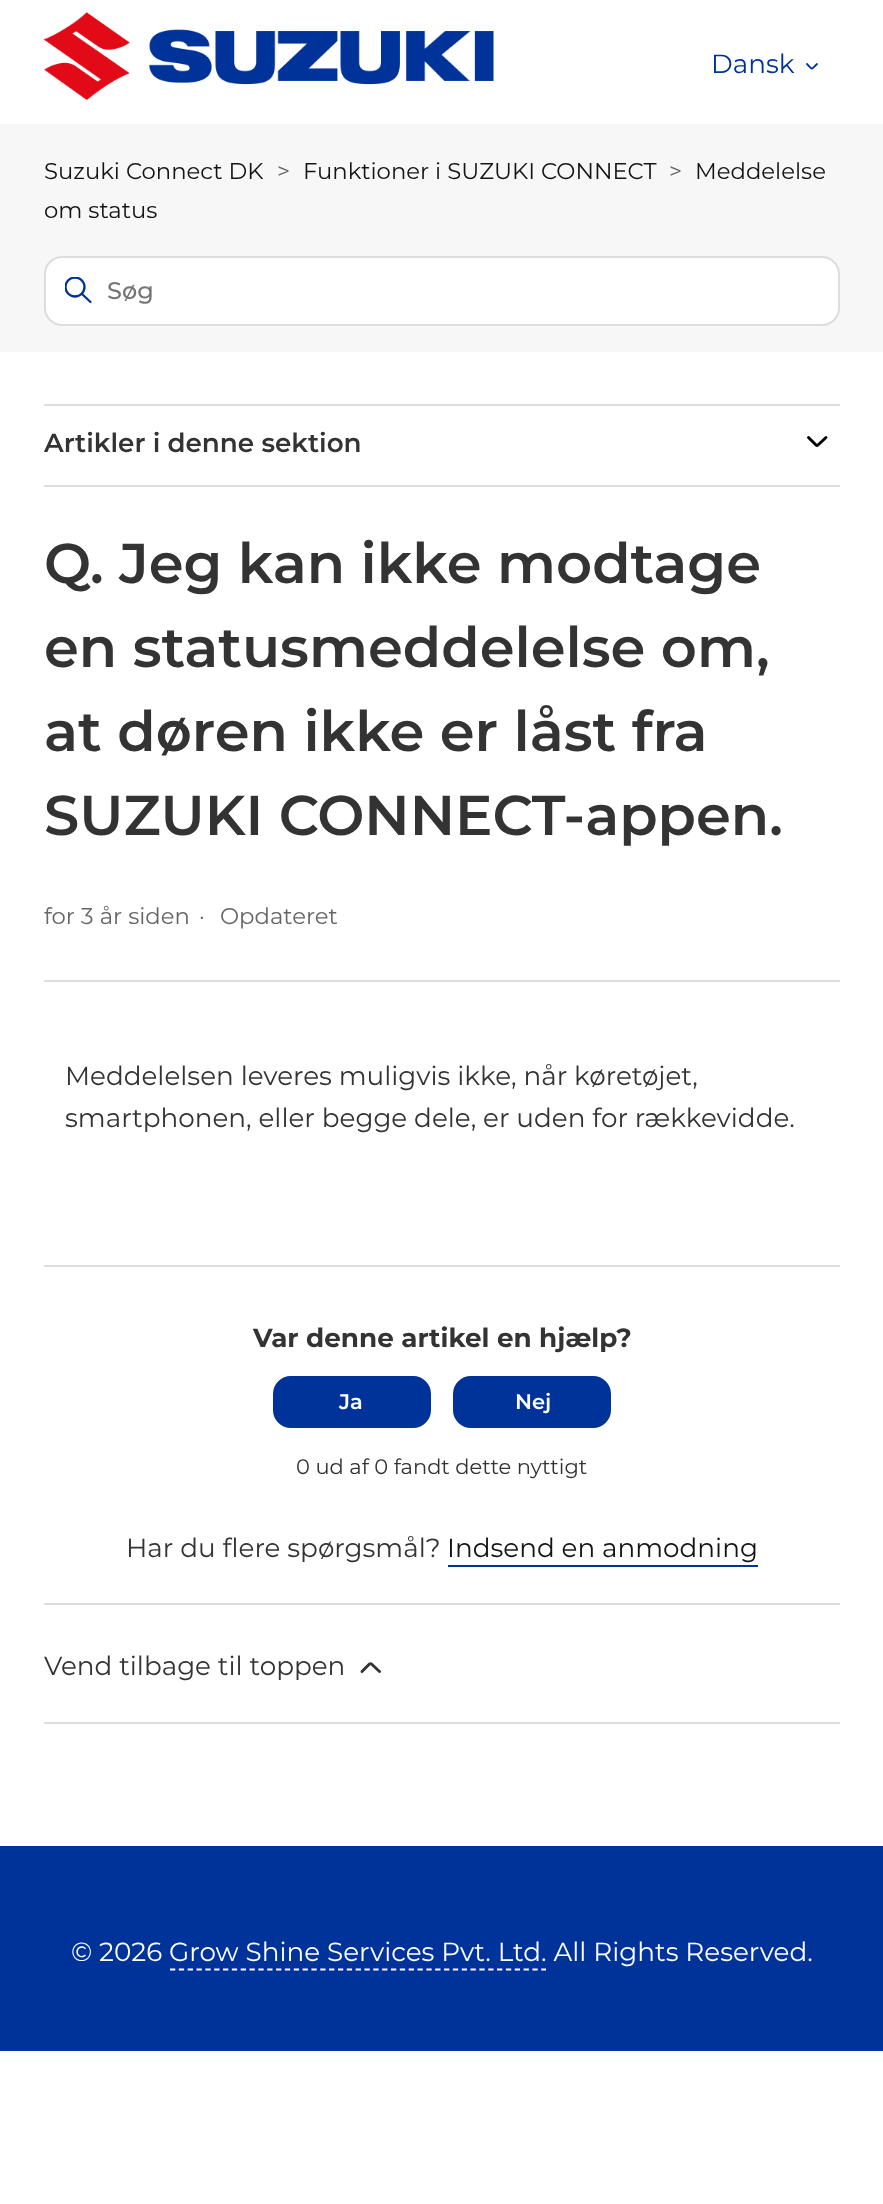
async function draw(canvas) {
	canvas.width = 883;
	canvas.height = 2204;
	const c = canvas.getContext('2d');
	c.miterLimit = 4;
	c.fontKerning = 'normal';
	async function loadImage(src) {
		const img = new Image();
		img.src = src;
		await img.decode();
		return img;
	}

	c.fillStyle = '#fff';
	c.fillRect(0, 0, 883, 2204);
	c.drawImage(await loadImage('img1.png'), 43, 12, 451, 88);
	c.font = '26.25px Montserrat';
	c.fillStyle = '#039';
	c.fillText('Dansk', 711, 73);
	c.beginPath();
	c.moveTo(807, 64);
	c.bezierCurveTo(813, 70, 810.5, 70, 817, 64);
	c.strokeStyle = '#039';
	c.lineWidth = 1.8;
	c.lineCap = 'round';
	c.stroke();
	c.fillStyle = '#f7f7f7';
	c.fillRect(0, 124, 883, 228);
	c.font = '22.75px Montserrat';
	c.fillStyle = '#141414';
	c.fillText('Suzuki Connect DK', 44, 179);
	c.fillStyle = '#666';
	c.fillText('>', 277, 179);
	c.fillStyle = '#141414';
	c.fillText('Funktioner i SUZUKI CONNECT', 303, 179);
	c.fillStyle = '#666';
	c.fillText('>', 669, 179);
	c.fillStyle = '#141414';
	c.fillText('Meddelelse', 695, 179);
	c.fillText('om status', 44, 218);
	c.fillStyle = '#fff';
	c.beginPath();
	c.roundRect(45, 257, 794, 68, 17);
	c.fill();
	c.strokeStyle = '#ddd';
	c.lineWidth = 2;
	c.stroke();
	c.save();
	c.beginPath();
	c.rect(65, 277, 28, 28);
	c.clip();
	c.beginPath();
	c.arc(75, 287, 9.5, 0, 2 * Math.PI);
	c.strokeStyle = '#039';
	c.lineWidth = 2.3;
	c.stroke();
	c.restore();
	c.beginPath();
	c.moveTo(90.5, 302);
	c.lineTo(82, 294);
	c.strokeStyle = '#039';
	c.lineWidth = 2.3;
	c.stroke();
	c.font = '500 24px Montserrat';
	c.fillStyle = '#757575';
	c.fillText('Søg', 107, 299);
	c.fillStyle = '#ddd';
	c.fillRect(44, 404, 796, 2);
	c.fillRect(44, 485, 796, 2);
	c.font = '600 26.25px Montserrat';
	c.fillStyle = '#333';
	c.fillText('Artikler i denne sektion', 44, 452);
	c.beginPath();
	c.moveTo(808.5, 437.5);
	c.lineTo(816, 445);
	c.bezierCurveTo(816.5, 445.5, 817.5, 445.5, 818, 445);
	c.lineTo(826, 437.5);
	c.strokeStyle = '#000';
	c.lineWidth = 2.9;
	c.stroke();
	c.fillStyle = '#ddd';
	c.fillRect(44, 980, 796, 2);
	c.font = '600 56px Montserrat';
	c.fillStyle = '#333';
	for (const [text, x, y] of [
		['Q. Jeg kan ikke modtage', 44, 583],
		['en statusmeddelelse om,', 44, 667],
		['at døren ikke er låst fra', 44, 751],
		['SUZUKI CONNECT-appen.', 44, 835],
	]) {
		c.fillText(text, x, y);
	}
	c.font = '22.75px Montserrat';
	c.fillStyle = '#666';
	for (const [text, x, y] of [
		['for 3 år siden', 44, 924],
		['·', 199, 924],
		['Opdateret', 220, 924],
	]) {
		c.fillText(text, x, y);
	}
	c.font = '26.25px Montserrat';
	c.fillStyle = '#333';
	c.fillText('Meddelelsen leveres muligvis ikke, når køretøjet,', 65, 1085);
	c.fillText('smartphonen, eller begge dele, er uden for rækkevidde.', 65, 1127);
	c.fillStyle = '#ddd';
	c.fillRect(44, 1265, 796, 2);
	c.font = 'bold 26.25px Montserrat';
	c.fillStyle = '#333';
	c.fillText('Var denne artikel en hjælp?', 253, 1347);
	c.fillStyle = '#039';
	c.beginPath();
	c.roundRect(274, 1377, 156, 50, 17);
	c.fill();
	c.strokeStyle = '#039';
	c.lineWidth = 2;
	c.stroke();
	c.font = '600 21px Montserrat';
	c.fillStyle = '#fff';
	c.fillText('Ja', 339, 1409);
	c.fillStyle = '#039';
	c.beginPath();
	c.roundRect(454, 1377, 156, 50, 17);
	c.fill();
	c.stroke();
	c.fillStyle = '#fff';
	c.fillText('Nej', 515, 1409);
	c.font = '21px Montserrat';
	c.fillStyle = '#333';
	c.fillText('0 ud af 0 fandt dette nyttigt', 296, 1474);
	c.font = '26.25px Montserrat';
	c.fillText('Har du flere spørgsmål?', 126, 1557);
	c.fillStyle = '#141414';
	c.fillText('Indsend en anmodning', 447, 1557);
	c.fillStyle = '#039';
	c.fillRect(448, 1565, 310, 2);
	c.fillStyle = '#ddd';
	c.fillRect(44, 1603, 796, 2);
	c.fillStyle = '#333';
	c.fillText('Vend tilbage til toppen', 44, 1675);
	c.beginPath();
	c.moveTo(379.5, 1671.5);
	c.lineTo(371.5, 1664);
	c.bezierCurveTo(371, 1663.5, 370.5, 1663.5, 369.5, 1664);
	c.lineTo(362, 1671.5);
	c.strokeStyle = '#333';
	c.lineWidth = 2.9;
	c.stroke();
	c.fillStyle = '#ddd';
	c.fillRect(44, 1722, 796, 2);
	c.fillStyle = '#039';
	c.fillRect(0, 1846, 883, 205);
	c.fillStyle = '#fff';
	c.fillText('© 2026 Grow Shine Services Pvt. Ltd. All Rights Reserved.', 71, 1961);
	c.beginPath();
	c.moveTo(170, 1969.5);
	c.lineTo(546, 1969.5);
	c.strokeStyle = '#fff';
	c.lineWidth = 1.8;
	c.lineCap = 'butt';
	c.setLineDash([5.25, 3.59]);
	c.stroke();
}

draw(document.querySelector('canvas'));
